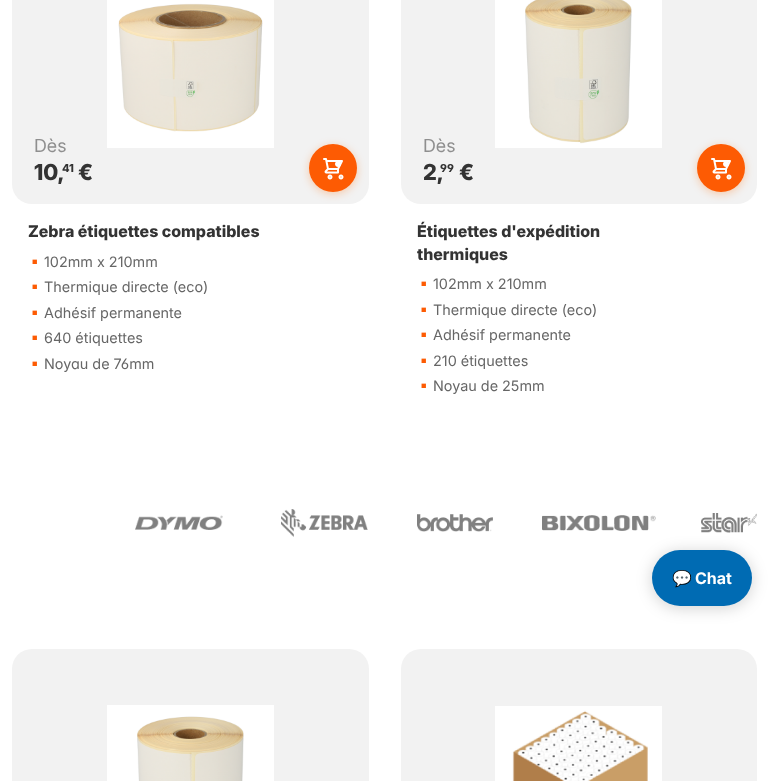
async function draw(canvas) {
	canvas.width = 769;
	canvas.height = 781;
	const c = canvas.getContext('2d');
	c.miterLimit = 4;
	c.fontKerning = 'normal';
	async function loadImage(src) {
		const img = new Image();
		img.src = src;
		await img.decode();
		return img;
	}

	c.fillStyle = '#fff';
	c.fillRect(0, 0, 769, 781);
	c.fillStyle = '#f2f2f2';
	c.beginPath();
	c.roundRect(12, -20, 357, 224, 20);
	c.fill();
	c.drawImage(await loadImage('img1.png'), 107, 0, 167, 148);
	c.font = '18px "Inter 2"';
	c.fillStyle = '#8f8f8f';
	c.fillText('Dès', 34, 152);
	c.font = '800 22px "Inter 2"';
	c.fillStyle = '#333';
	c.fillText('10,', 34, 180);
	c.font = '800 11px "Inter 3"';
	c.fillText('41', 62, 172);
	c.font = '800 22px "Inter 2"';
	c.fillText('€', 78, 180);
	c.fillStyle = '#ff6a004d';
	c.filter = 'blur(4px)';
	c.beginPath();
	c.roundRect(309, 146, 48, 48, 24);
	c.fill();
	c.filter = 'none';
	c.fillStyle = '#fd5b03';
	c.beginPath();
	c.arc(333, 168, 24, 0, 2 * Math.PI);
	c.fill();
	c.drawImage(await loadImage('img2.png'), 323, 158, 21, 22);
	c.font = '800 16px Inter';
	c.fillStyle = '#333';
	c.fillText('Zebra étiquettes compatibles', 28, 237);
	c.font = 'bold 6px Inter';
	c.fillStyle = '#fd5b03';
	c.fillText('■', 32, 264);
	c.font = '14.4px Inter';
	c.fillStyle = '#666';
	c.fillText('102mm x 210mm', 44, 267);
	c.font = 'bold 6px Inter';
	c.fillStyle = '#fd5b03';
	c.fillText('■', 32, 289);
	c.font = '14.4px Inter';
	c.fillStyle = '#666';
	c.fillText('Thermique directe (eco)', 44, 292);
	c.font = 'bold 6px Inter';
	c.fillStyle = '#fd5b03';
	c.fillText('■', 32, 315);
	c.font = '14.4px Inter';
	c.fillStyle = '#666';
	c.fillText('Adhésif permanente', 44, 318);
	c.font = 'bold 6px Inter';
	c.fillStyle = '#fd5b03';
	c.fillText('■', 32, 340);
	c.font = '14.4px Inter';
	c.fillStyle = '#666';
	c.fillText('640 étiquettes', 44, 343);
	c.font = 'bold 6px Inter';
	c.fillStyle = '#fd5b03';
	c.fillText('■', 32, 366);
	c.font = '14.4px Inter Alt';
	c.fillStyle = '#666';
	c.fillText('Noyau de 76mm', 44, 369);
	c.fillStyle = '#f2f2f2';
	c.beginPath();
	c.roundRect(401, -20, 356, 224, 20);
	c.fill();
	c.drawImage(await loadImage('img3.png'), 495, 0, 167, 148);
	c.font = '18px "Inter 2"';
	c.fillStyle = '#8f8f8f';
	c.fillText('Dès', 423, 152);
	c.font = '800 22px "Inter 2"';
	c.fillStyle = '#333';
	c.fillText('2,', 423, 180);
	c.font = '800 11px Inter Alt';
	c.fillText('99', 440, 172);
	c.font = '800 22px "Inter 2"';
	c.fillText('€', 459, 180);
	c.fillStyle = '#ff6a004d';
	c.filter = 'blur(4px)';
	c.beginPath();
	c.roundRect(697, 146, 48, 48, 24);
	c.fill();
	c.filter = 'none';
	c.fillStyle = '#fd5b03';
	c.beginPath();
	c.arc(721, 168, 24, 0, 2 * Math.PI);
	c.fill();
	c.drawImage(await loadImage('img2.png'), 711, 158, 21, 22);
	c.font = '800 16px Inter';
	c.fillStyle = '#333';
	c.fillText('Étiquettes d\'expédition', 417, 237);
	c.fillText('thermiques', 417, 260);
	c.font = 'bold 6px Inter';
	c.fillStyle = '#fd5b03';
	c.fillText('■', 421, 286);
	c.font = '14.4px Inter';
	c.fillStyle = '#666';
	c.fillText('102mm x 210mm', 433, 289);
	c.font = 'bold 6px Inter';
	c.fillStyle = '#fd5b03';
	c.fillText('■', 421, 312);
	c.font = '14.4px Inter';
	c.fillStyle = '#666';
	c.fillText('Thermique directe (eco)', 433, 315);
	c.font = 'bold 6px Inter';
	c.fillStyle = '#fd5b03';
	c.fillText('■', 421, 337);
	c.font = '14.4px Inter';
	c.fillStyle = '#666';
	c.fillText('Adhésif permanente', 433, 340);
	c.font = 'bold 6px Inter';
	c.fillStyle = '#fd5b03';
	c.fillText('■', 421, 363);
	c.font = '14.4px Inter';
	c.fillStyle = '#666';
	c.fillText('210 étiquettes', 433, 366);
	c.font = 'bold 6px Inter';
	c.fillStyle = '#fd5b03';
	c.fillText('■', 421, 388);
	c.font = '14.4px Inter';
	c.fillStyle = '#666';
	c.fillText('Noyau de 25mm', 433, 391);
	c.drawImage(await loadImage('img4.png'), 135, 515, 88, 15);
	c.drawImage(await loadImage('img5.png'), 281, 509, 87, 28);
	c.drawImage(await loadImage('img6.png'), 417, 514, 76, 18);
	c.drawImage(await loadImage('img7.png'), 542, 515, 114, 16);
	c.drawImage(await loadImage('img8.png'), 701, 513, 56, 20);
	c.fillStyle = '#f2f2f2';
	c.beginPath();
	c.roundRect(12, 649, 357, 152, 20);
	c.fill();
	c.drawImage(await loadImage('img9.png'), 107, 705, 167, 76);
	c.beginPath();
	c.roundRect(401, 649, 356, 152, 20);
	c.fill();
	c.drawImage(await loadImage('img10.png'), 495, 706, 167, 75);
	c.fillStyle = '#0000002e';
	c.filter = 'blur(8px)';
	c.beginPath();
	c.roundRect(652, 552, 100, 56, 28);
	c.fill();
	c.filter = 'none';
	c.fillStyle = '#006bb3';
	c.beginPath();
	c.roundRect(652, 550, 100, 56, 28);
	c.fill();
	c.font = 'bold 16px Noto Color Emoji';
	c.fillStyle = '#fff';
	c.fillText('💬', 672, 584);
	c.font = 'bold 16px Inter';
	c.fillText('Chat', 695, 584);
}

draw(document.querySelector('canvas'));
